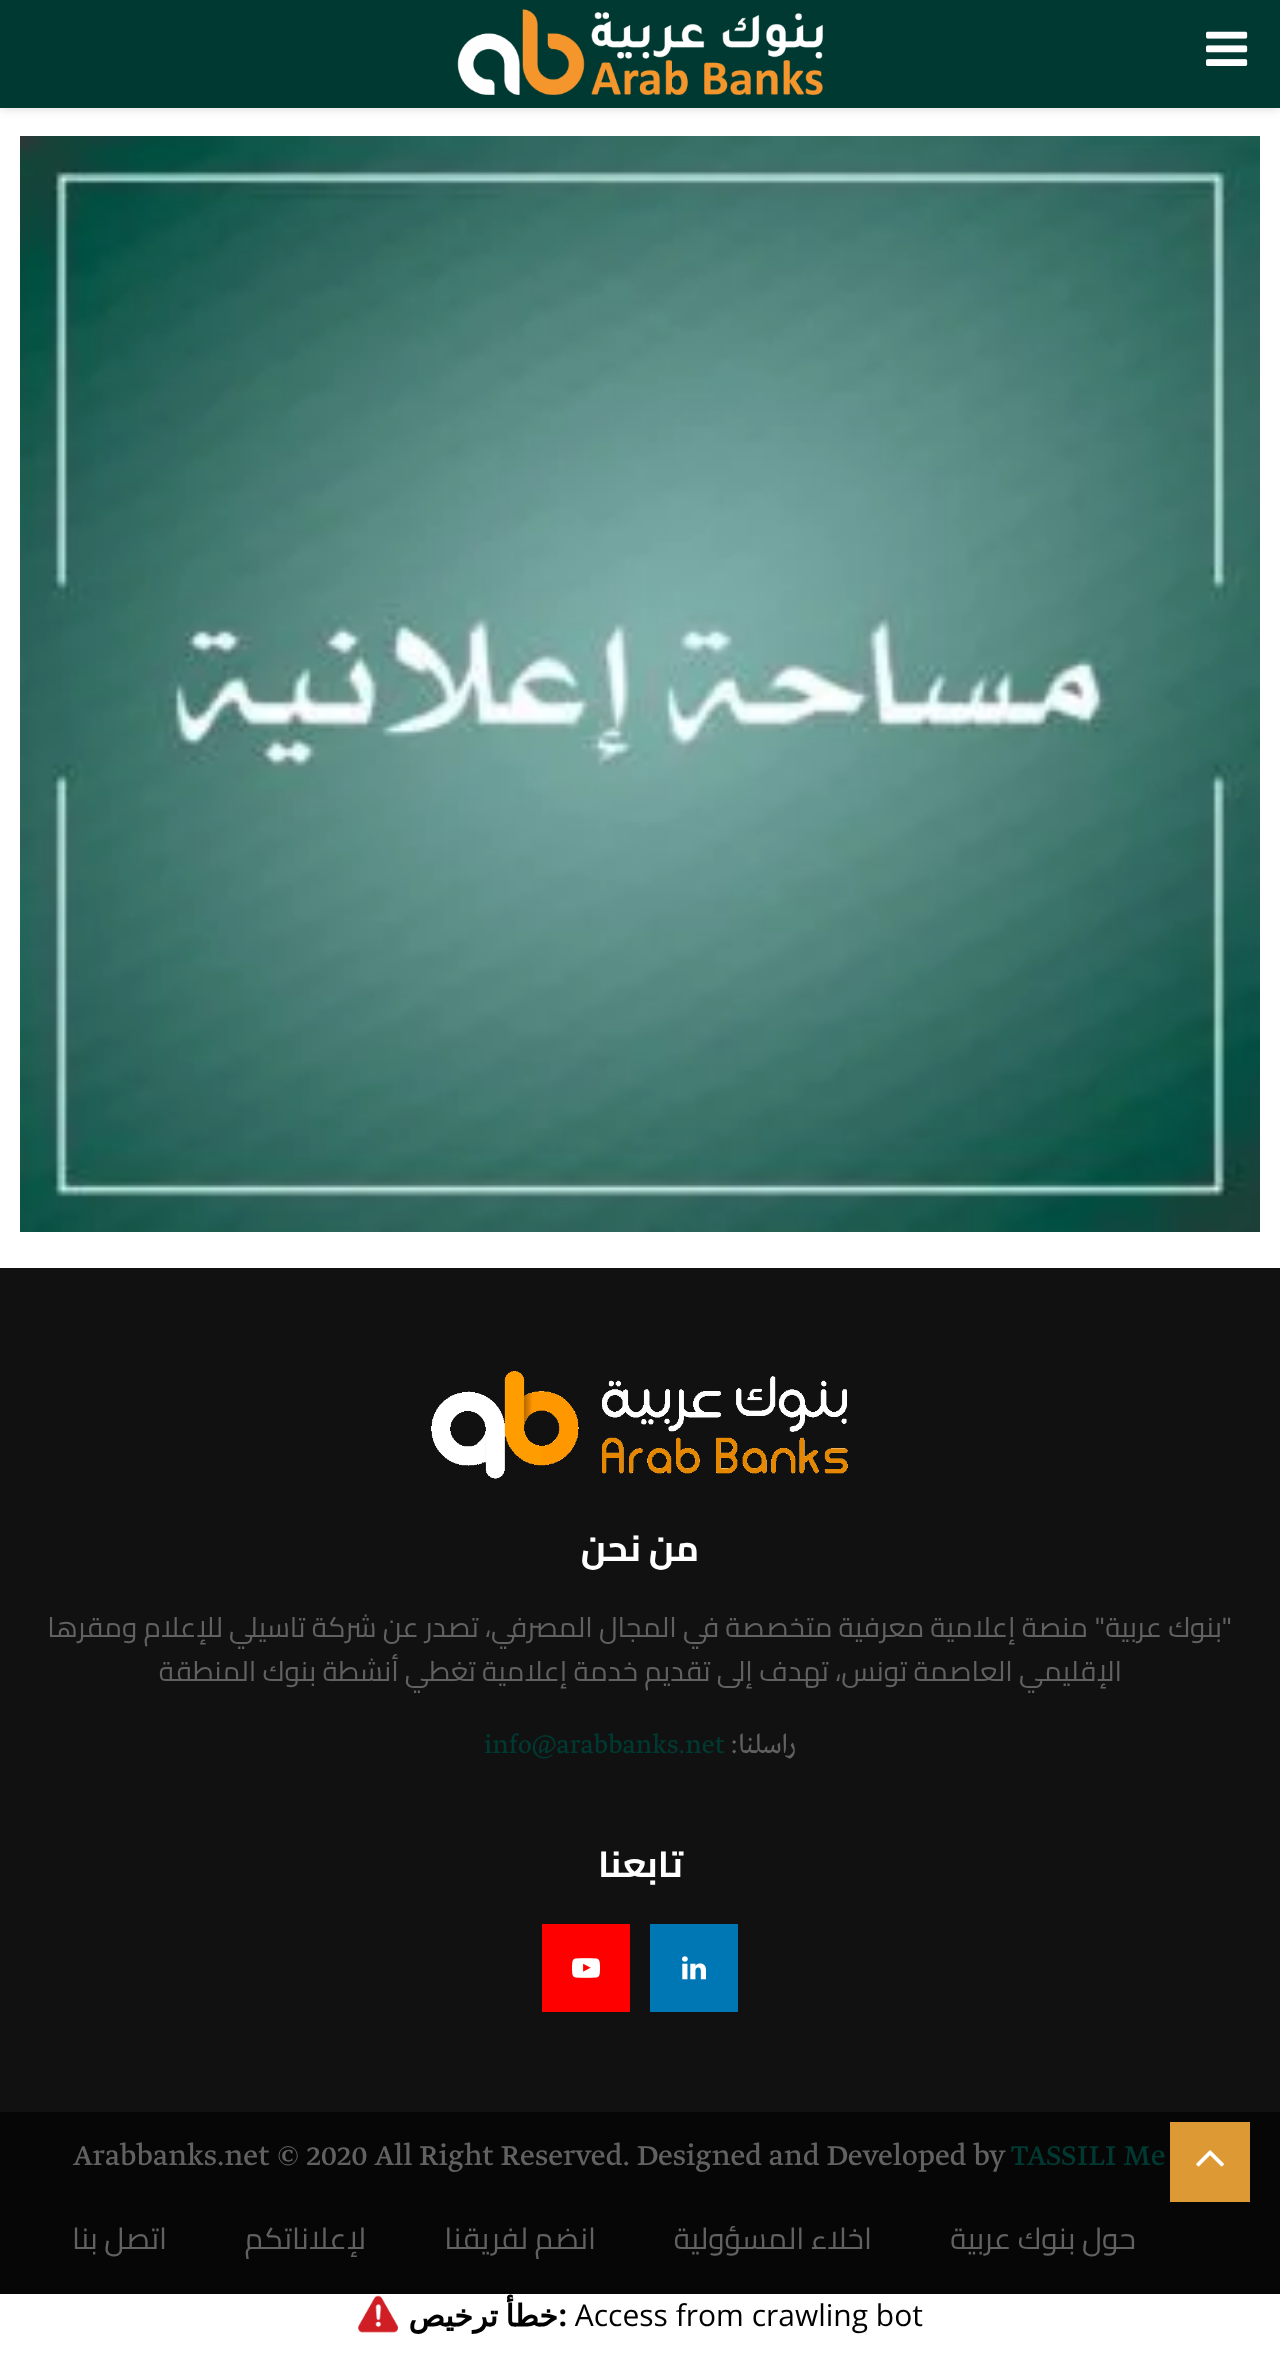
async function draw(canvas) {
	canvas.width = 1280;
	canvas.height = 2354;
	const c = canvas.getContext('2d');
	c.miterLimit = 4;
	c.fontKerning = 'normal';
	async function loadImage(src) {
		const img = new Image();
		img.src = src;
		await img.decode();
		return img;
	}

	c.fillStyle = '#fff';
	c.fillRect(0, 0, 1280, 2354);
	c.fillStyle = '#bebebe75';
	c.filter = 'blur(5px)';
	c.beginPath();
	c.rect(0, 2, 1280, 108);
	c.fill();
	c.filter = 'none';
	c.fillStyle = '#003931';
	c.fillRect(0, 0, 1280, 108);
	c.drawImage(await loadImage('img1.png'), 1206, 31, 42, 35);
	c.drawImage(await loadImage('img2.png'), 457, 9, 366, 86);
	c.drawImage(await loadImage('img3.png'), 20, 136, 1240, 1096);
	c.fillStyle = '#111';
	c.fillRect(0, 1268, 1280, 844);
	c.drawImage(await loadImage('img4.png'), 431, 1371, 417, 108);
	c.direction = 'rtl';
	c.font = 'bold 36px Cairo';
	c.fillStyle = '#fff';
	c.fillText('من نحن', 699, 1561);
	c.font = '28px "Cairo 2"';
	c.fillStyle = '#616161';
	c.fillText('"', 1232, 1637);
	c.font = '28px Cairo';
	c.fillText('بنوك عربية', 1222, 1637);
	c.font = '28px "Cairo 2"';
	c.fillText('"', 1105, 1637);
	c.font = '28px Cairo';
	c.fillText('منصة إعلامية معرفية متخصصة في المجال المصرفي، تصدر عن شركة تاسيلي للإعلام ومقرها', 1088, 1637);
	c.fillText('الإقليمي العاصمة تونس، تهدف إلى تقديم خدمة إعلامية تغطي أنشطة بنوك المنطقة', 1122, 1681);
	c.font = '28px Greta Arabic';
	c.fillText('راسلنا:', 796, 1753);
	c.direction = 'ltr';
	c.fillStyle = '#003931';
	c.fillText('info@arabbanks.net', 484, 1753);
	c.direction = 'rtl';
	c.font = 'bold 36px Cairo';
	c.fillStyle = '#fff';
	c.fillText('تابعنا', 683, 1877);
	c.fillStyle = '#0077b5';
	c.fillRect(650, 1924, 88, 88);
	c.drawImage(await loadImage('img5.png'), 682, 1956, 24, 24);
	c.fillStyle = '#f00';
	c.fillRect(542, 1924, 88, 88);
	c.drawImage(await loadImage('img6.png'), 572, 1958, 28, 20);
	c.fillStyle = '#060606';
	c.fillRect(0, 2112, 1280, 182);
	c.direction = 'ltr';
	c.font = '32px Greta Arabic';
	c.fillStyle = '#003931';
	c.fillText('TASSILI Me', 1011, 2165);
	c.fillStyle = '#616161';
	c.fillText('Arabbanks.net © 2020 All Right Reserved. Designed and Developed by', 73, 2165);
	c.direction = 'rtl';
	c.font = '30px Cairo';
	for (const [text, x, y] of [
		['حول بنوك عربية', 1136, 2249],
		['اخلاء المسؤولية', 872, 2249],
		['انضم لفريقنا', 596, 2249],
		['لإعلاناتكم', 366, 2249],
		['اتصل بنا', 167, 2249],
	]) {
		c.fillText(text, x, y);
	}
	c.fillStyle = '#d93';
	c.fillRect(1170, 2122, 80, 80);
	c.drawImage(await loadImage('img7.png'), 1196, 2150, 28, 17);
	c.drawImage(await loadImage('img8.png'), 0, 2294, 1280, 60);
}

draw(document.querySelector('canvas'));
